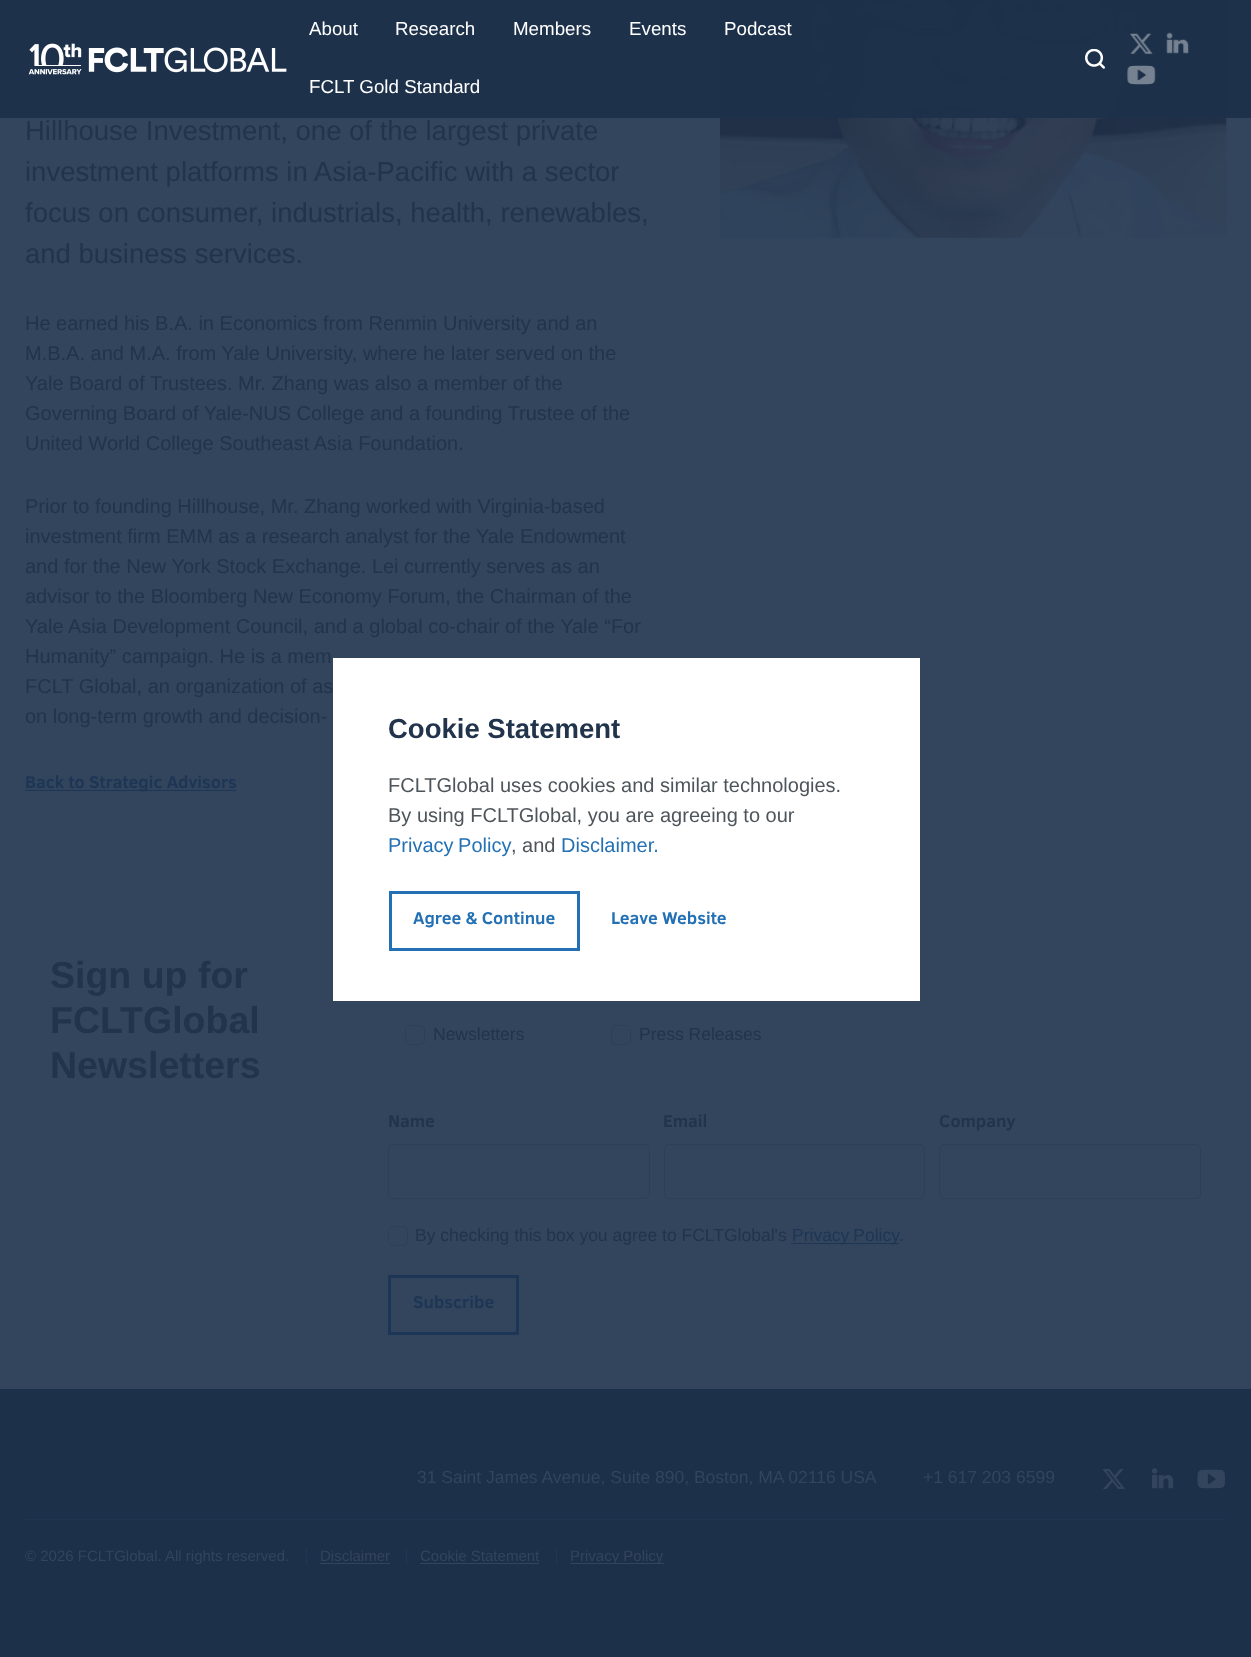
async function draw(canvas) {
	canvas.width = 1251;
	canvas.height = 1657;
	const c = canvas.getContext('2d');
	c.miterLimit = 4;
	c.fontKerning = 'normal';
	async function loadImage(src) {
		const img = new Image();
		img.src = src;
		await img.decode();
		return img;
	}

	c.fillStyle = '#33455c';
	c.fillRect(0, 0, 1251, 1657);
	c.fillStyle = '#2f4158';
	c.fillRect(25, 19, 633, 1);
	c.drawImage(await loadImage('img6.png'), 720, 0, 507, 238);
	c.fillStyle = '#1c304af2';
	c.fillRect(0, 0, 1251, 118);
	c.drawImage(await loadImage('img1.png'), 28, 43, 259, 32);
	c.font = '18.75px Liberation Sans';
	c.fillStyle = '#fff';
	for (const [text, x, y] of [
		['About', 309, 35],
		['Research', 395, 35],
		['Members', 513, 35],
		['Events', 629, 35],
		['Podcast', 724, 35],
		['FCLT Gold Standard', 309, 93],
	]) {
		c.fillText(text, x, y);
	}
	c.drawImage(await loadImage('img2.png'), 1085, 49, 20, 20);
	c.drawImage(await loadImage('img3.png'), 1130, 33, 23, 21);
	c.drawImage(await loadImage('img4.png'), 1166, 32, 23, 22);
	c.drawImage(await loadImage('img5.png'), 1127, 65, 29, 20);
	c.font = '27.5px Liberation Sans';
	c.fillStyle = '#21344c';
	for (const [text, x, y] of [
		['Hillhouse Investment, one of the largest private', 25, 140],
		['investment platforms in Asia-Pacific with a sector', 25, 181],
		['focus on consumer, industrials, health, renewables,', 25, 222],
		['and business services.', 25, 263],
	]) {
		c.fillText(text, x, y);
	}
	c.font = '20px Liberation Sans';
	for (const [text, x, y] of [
		['He earned his B.A. in Economics from Renmin University and an', 25, 330],
		['M.B.A. and M.A. from Yale University, where he later served on the', 25, 360],
		['Yale Board of Trustees. Mr. Zhang was also a member of the', 25, 390],
		['Governing Board of Yale-NUS College and a founding Trustee of the', 25, 420],
		['United World College Southeast Asia Foundation.', 25, 450],
		['Prior to founding Hillhouse, Mr. Zhang worked with Virginia-based', 25, 513],
		['investment firm EMM as a research analyst for the Yale Endowment', 25, 543],
		['and for the New York Stock Exchange. Lei currently serves as an', 25, 573],
		['advisor to the Bloomberg New Economy Forum, the Chairman of the', 25, 603],
		['Yale Asia Development Council, and a global co-chair of the Yale “For', 25, 633],
		['Humanity” campaign. He is a mem', 25, 663],
		['FCLT Global, an organization of as', 25, 693],
		['on long-term growth and decision-', 25, 723],
	]) {
		c.fillText(text, x, y);
	}
	c.fillStyle = '#1d3655';
	c.fillRect(25, 790, 211, 1);
	c.font = 'bold 17.5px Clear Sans';
	c.fillText('Back to Strategic Advisors', 25, 788);
	c.fillStyle = '#fff';
	c.fillRect(333, 658, 587, 343);
	c.font = 'bold 27.5px Liberation Sans';
	c.fillStyle = '#21344c';
	c.fillText('Cookie Statement', 388, 738);
	c.font = '20px Liberation Sans';
	c.fillStyle = '#4e555a';
	c.fillText('FCLTGlobal uses cookies and similar technologies.', 388, 792);
	c.fillText('By using FCLTGlobal, you are agreeing to our', 388, 822);
	c.wordSpacing = '-1px';
	c.fillStyle = '#2370b4';
	c.fillText('Privacy Policy', 388, 852);
	c.wordSpacing = '0px';
	c.fillStyle = '#4e555a';
	c.fillText(', and', 511, 852);
	c.fillStyle = '#2370b4';
	c.fillText('Disclaimer.', 561, 852);
	c.strokeStyle = '#2370b4';
	c.lineWidth = 3;
	c.strokeRect(390.5, 892.5, 188, 57);
	c.font = 'bold 17.5px Clear Sans';
	c.fillText('Agree & Continue', 413, 924);
	c.fillText('Leave Website', 611, 924);
	c.fillStyle = '#1c304a';
	c.fillRect(0, 1389, 1251, 268);
	c.font = 'bold 37.5px Liberation Sans';
	c.fillStyle = '#21344c';
	for (const [text, x, y] of [
		['Sign up for', 50, 988],
		['FCLTGlobal', 50, 1033],
		['Newsletters', 50, 1078],
	]) {
		c.fillText(text, x, y);
	}
	c.beginPath();
	c.roundRect(405.5, 1025.5, 19, 19, 4.5);
	c.strokeStyle = '#2e4058';
	c.lineWidth = 1;
	c.stroke();
	c.font = '17.5px Liberation Sans';
	c.fillText('Newsletters', 433, 1040);
	c.beginPath();
	c.roundRect(611.5, 1025.5, 19, 19, 4.5);
	c.stroke();
	c.fillText('Press Releases', 639, 1040);
	c.font = 'bold 17.5px Clear Sans';
	c.fillText('Name', 388, 1127);
	c.beginPath();
	c.roundRect(388.5, 1144.5, 261, 54, 4.5);
	c.stroke();
	c.fillText('Email', 663, 1127);
	c.beginPath();
	c.roundRect(664.5, 1144.5, 260, 54, 4.5);
	c.stroke();
	c.fillText('Company', 939, 1127);
	c.beginPath();
	c.roundRect(939.5, 1144.5, 261, 54, 4.5);
	c.stroke();
	c.beginPath();
	c.roundRect(388.5, 1226.5, 19, 19, 4.5);
	c.stroke();
	c.font = '17.5px Liberation Sans';
	c.fillText('By checking this box you agree to FCLTGlobal\'s', 415, 1241);
	c.fillStyle = '#1d3655';
	c.fillRect(791, 1243, 108, 1);
	c.wordSpacing = '-1px';
	c.fillText('Privacy Policy', 792, 1241);
	c.wordSpacing = '0px';
	c.fillStyle = '#21344c';
	c.fillText('.', 899, 1241);
	c.strokeStyle = '#1d3655';
	c.lineWidth = 3;
	c.strokeRect(389.5, 1276.5, 128, 57);
	c.font = 'bold 17.5px Clear Sans';
	c.fillStyle = '#1d3655';
	c.fillText('Subscribe', 413, 1308);
	c.font = '17.5px Liberation Sans';
	c.fillStyle = '#33455c';
	c.fillText('31 Saint James Avenue, Suite 890, Boston, MA 02116 USA', 417, 1483);
	c.fillText('+1 617 203 6599', 923, 1483);
	c.drawImage(await loadImage('img7.png'), 1102, 1469, 23, 20);
	c.drawImage(await loadImage('img8.png'), 1151, 1468, 23, 21);
	c.drawImage(await loadImage('img9.png'), 1197, 1469, 28, 20);
	c.fillStyle = '#1f3450';
	c.fillRect(25, 1519, 1201, 1);
	c.font = '15px Liberation Sans';
	c.fillStyle = '#33455c';
	c.fillText('© 2026 FCLTGlobal. All rights reserved.', 25, 1561);
	c.fillText('Disclaimer', 320, 1561);
	c.fillStyle = '#213651';
	c.fillRect(306, 1548, 1, 17);
	c.fillStyle = '#33455c';
	c.fillRect(320, 1563, 70, 1);
	c.fillText('Cookie Statement', 420, 1561);
	for (const [x, y, w, h, color] of [
		[406, 1548, 1, 17, '#213651'],
		[420, 1563, 119, 1, '#33455c'],
		[570, 1563, 94, 1, '#33455c'],
	]) {
		c.fillStyle = color;
		c.fillRect(x, y, w, h);
	}
	c.fillText('Privacy Policy', 570, 1561);
	c.fillStyle = '#213651';
	c.fillRect(556, 1548, 1, 17);
}

draw(document.querySelector('canvas'));
